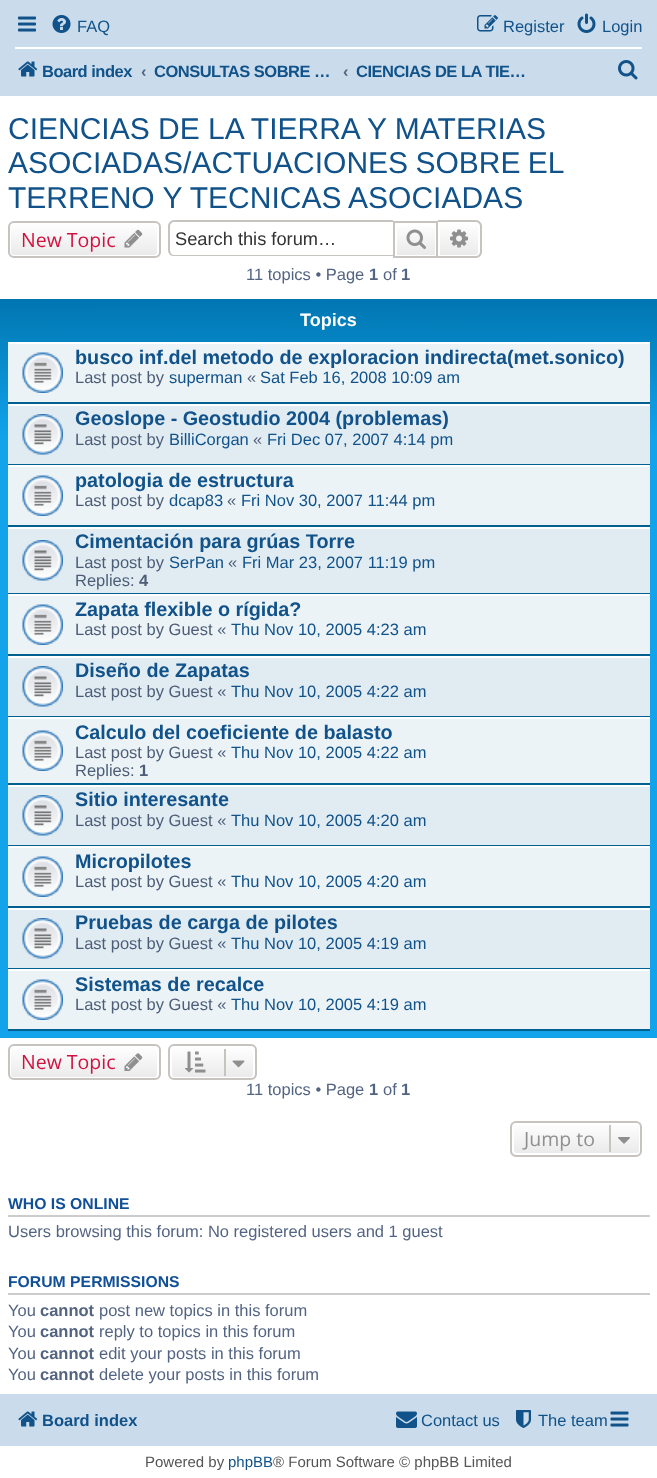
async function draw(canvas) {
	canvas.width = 657;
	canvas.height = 1478;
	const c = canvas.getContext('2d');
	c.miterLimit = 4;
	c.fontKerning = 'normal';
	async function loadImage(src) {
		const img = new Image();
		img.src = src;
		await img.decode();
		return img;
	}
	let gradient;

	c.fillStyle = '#fff';
	c.fillRect(0, 0, 657, 1478);
	c.fillStyle = '#cadceb';
	c.fillRect(0, 0, 657, 96);
	c.drawImage(await loadImage('img1.png'), 18, 16, 18, 16);
	c.drawImage(await loadImage('img2.png'), 52, 15, 19, 18);
	c.font = '16.5px Liberation Sans';
	c.fillStyle = '#105289';
	c.fillText('FAQ', 77, 32);
	c.drawImage(await loadImage('img3.png'), 477, 15, 21, 17);
	c.fillText('Register', 503, 32);
	c.drawImage(await loadImage('img4.png'), 577, 13, 19, 20);
	c.fillText('Login', 602, 32);
	c.fillStyle = '#fff';
	c.fillRect(15, 47, 627, 2);
	c.drawImage(await loadImage('img5.png'), 18, 61, 20, 16);
	c.letterSpacing = '-0.5px';
	c.font = 'bold 16.5px Liberation Sans';
	c.fillStyle = '#105289';
	c.fillText('Board index', 42, 77);
	c.letterSpacing = '0px';
	c.fillStyle = '#536482';
	c.fillText('‹', 141, 77);
	c.letterSpacing = '-0.5px';
	c.fillStyle = '#105289';
	c.fillText('CONSULTAS SOBRE …', 154, 77);
	c.letterSpacing = '0px';
	c.fillStyle = '#536482';
	c.fillText('‹', 343, 77);
	c.letterSpacing = '-0.5px';
	c.fillStyle = '#105289';
	c.fillText('CIENCIAS DE LA TIE…', 356, 77);
	c.drawImage(await loadImage('img6.png'), 618, 60, 20, 20);
	c.letterSpacing = '0px';
	c.font = '30px Liberation Sans';
	c.fillText('CIENCIAS DE LA TIERRA Y MATERIAS', 8, 139);
	c.wordSpacing = '-1px';
	c.fillText('ASOCIADAS/ACTUACIONES SOBRE EL', 8, 173);
	c.wordSpacing = '0px';
	c.fillText('TERRENO Y TECNICAS ASOCIADAS', 8, 208);
	c.save();
	c.beginPath();
	c.roundRect(8, 221, 153, 37, 6);
	c.clip();
	gradient = c.createLinearGradient(84, 222, 84, 257);
	gradient.addColorStop(0, '#fff');
	gradient.addColorStop(1, '#e9e9e9');
	c.fillStyle = gradient;
	c.fillRect(8, 222, 153, 35);
	c.restore();
	c.beginPath();
	c.roundRect(10, 223, 148, 33, 4);
	c.strokeStyle = '#fff';
	c.lineWidth = 2;
	c.stroke();
	c.beginPath();
	c.roundRect(9, 222, 151, 35, 5);
	c.strokeStyle = '#c7c3bf';
	c.stroke();
	c.font = '19.5px Open Sans';
	c.fillStyle = '#d31141';
	c.fillText('New Topic', 21, 247);
	c.drawImage(await loadImage('img7.png'), 124, 229, 19, 19);
	c.fillStyle = '#c7c3bf';
	c.beginPath();
	c.moveTo(174, 220);
	c.lineTo(393, 220);
	c.lineTo(393, 256);
	c.lineTo(174, 256);
	c.bezierCurveTo(171, 256, 168, 254, 168, 250);
	c.lineTo(168, 226);
	c.bezierCurveTo(168, 223, 171, 220, 174, 220);
	c.closePath();
	c.moveTo(174, 222);
	c.lineTo(393, 222);
	c.lineTo(393, 255);
	c.lineTo(174, 255);
	c.bezierCurveTo(172, 255, 170, 253, 170, 250);
	c.lineTo(170, 226);
	c.bezierCurveTo(170, 224, 172, 222, 174, 222);
	c.closePath();
	c.fill('evenodd');
	c.font = '18.25px Liberation Sans';
	c.fillStyle = '#333';
	c.fillText('Search this forum…', 175, 245);
	gradient = c.createLinearGradient(416, 222, 416, 257);
	gradient.addColorStop(0, '#fff');
	gradient.addColorStop(1, '#e9e9e9');
	c.fillStyle = gradient;
	c.fillRect(397, 226, 38, 29);
	c.strokeRect(394, 222, 43, 35);
	c.drawImage(await loadImage('img8.png'), 406, 229, 20, 20);
	gradient = c.createLinearGradient(459, 222, 459, 257);
	gradient.addColorStop(0, '#fff');
	gradient.addColorStop(1, '#e9e9e9');
	c.fillStyle = gradient;
	c.beginPath();
	c.roundRect(439, 223, 40, 33, [0, 4, 4, 0]);
	c.fill();
	c.strokeStyle = '#fff';
	c.stroke();
	c.fillStyle = '#c7c3bf';
	c.beginPath();
	c.moveTo(438, 220);
	c.lineTo(476, 220);
	c.bezierCurveTo(479, 220, 482, 223, 482, 226);
	c.lineTo(482, 252);
	c.bezierCurveTo(482, 255, 479, 258, 476, 258);
	c.lineTo(438, 258);
	c.closePath();
	c.moveTo(438, 222);
	c.lineTo(476, 222);
	c.bezierCurveTo(478, 222, 480, 224, 480, 226);
	c.lineTo(480, 252);
	c.bezierCurveTo(480, 254, 478, 256, 476, 256);
	c.lineTo(438, 256);
	c.closePath();
	c.fill('evenodd');
	c.drawImage(await loadImage('img9.png'), 450, 229, 18, 19);
	c.font = '16.5px Liberation Sans';
	c.fillStyle = '#536482';
	c.fillText('11 topics • Page', 246, 280);
	c.font = 'bold 16.5px Liberation Sans';
	c.fillText('1', 369, 280);
	c.font = '16.5px Liberation Sans';
	c.fillText('of', 383, 280);
	c.font = 'bold 16.5px Liberation Sans';
	c.fillText('1', 401, 280);
	gradient = c.createLinearGradient(328, 298, 329, 1038);
	gradient.addColorStop(0, '#6aceff');
	gradient.addColorStop(0, '#0076b1');
	gradient.addColorStop(0.19, '#12a3eb');
	gradient.addColorStop(1, '#12a3eb');
	c.fillStyle = gradient;
	c.fillRect(0, 299, 657, 739);
	c.font = 'bold 18px Liberation Sans';
	c.fillStyle = '#fff';
	c.fillText('Topics', 300, 326);
	for (const [x, y, w, h, color] of [
		[8, 344, 642, 58, '#ecf3f7'],
		[8, 342, 642, 2, '#fff'],
		[8, 402, 642, 2, '#00608f'],
	]) {
		c.fillStyle = color;
		c.fillRect(x, y, w, h);
	}
	c.drawImage(await loadImage('img10.png'), 22, 352, 41, 41);
	c.font = 'bold 19.8px Liberation Sans';
	c.fillStyle = '#105289';
	c.fillText('busco inf.del metodo de exploracion indirecta(met.sonico)', 75, 364);
	c.font = '16.5px Liberation Sans';
	c.fillStyle = '#4c5d77';
	c.fillText('Last post by', 75, 383);
	c.fillStyle = '#105289';
	c.fillText('superman', 169, 383);
	c.fillStyle = '#4c5d77';
	c.fillText('«', 247, 383);
	c.fillStyle = '#105289';
	c.fillText('Sat Feb 16, 2008 10:09 am', 260, 383);
	for (const [x, y, w, h, color] of [
		[8, 406, 642, 58, '#e1ebf2'],
		[8, 404, 642, 2, '#fff'],
		[8, 464, 642, 1, '#00608f'],
	]) {
		c.fillStyle = color;
		c.fillRect(x, y, w, h);
	}
	c.drawImage(await loadImage('img11.png'), 22, 414, 41, 41);
	c.font = 'bold 19.8px Liberation Sans';
	c.fillStyle = '#105289';
	c.fillText('Geoslope - Geostudio 2004 (problemas)', 75, 425);
	c.font = '16.5px Liberation Sans';
	c.fillStyle = '#4c5d77';
	c.fillText('Last post by', 75, 445);
	c.fillStyle = '#105289';
	c.fillText('BilliCorgan', 169, 445);
	c.fillStyle = '#4c5d77';
	c.fillText('«', 253, 445);
	c.fillStyle = '#105289';
	c.fillText('Fri Dec 07, 2007 4:14 pm', 267, 445);
	for (const [x, y, w, h, color] of [
		[8, 467, 642, 58, '#ecf3f7'],
		[8, 465, 642, 2, '#fff'],
		[8, 525, 642, 2, '#00608f'],
	]) {
		c.fillStyle = color;
		c.fillRect(x, y, w, h);
	}
	c.drawImage(await loadImage('img10.png'), 22, 475, 41, 41);
	c.font = 'bold 19.8px Liberation Sans';
	c.fillStyle = '#105289';
	c.fillText('patologia de estructura', 75, 487);
	c.font = '16.5px Liberation Sans';
	c.fillStyle = '#4c5d77';
	c.fillText('Last post by', 75, 506);
	c.fillStyle = '#105289';
	c.fillText('dcap83', 169, 506);
	c.fillStyle = '#4c5d77';
	c.fillText('«', 227, 506);
	c.fillStyle = '#105289';
	c.fillText('Fri Nov 30, 2007 11:44 pm', 241, 506);
	for (const [x, y, w, h, color] of [
		[8, 529, 642, 64, '#e1ebf2'],
		[8, 527, 642, 2, '#fff'],
		[8, 593, 642, 1, '#00608f'],
	]) {
		c.fillStyle = color;
		c.fillRect(x, y, w, h);
	}
	c.drawImage(await loadImage('img11.png'), 22, 540, 41, 41);
	c.font = 'bold 19.8px Liberation Sans';
	c.fillStyle = '#105289';
	c.fillText('Cimentación para grúas Torre', 75, 548);
	c.font = '16.5px Liberation Sans';
	c.fillStyle = '#4c5d77';
	c.fillText('Last post by', 75, 568);
	c.fillStyle = '#105289';
	c.fillText('SerPan', 169, 568);
	c.fillStyle = '#4c5d77';
	c.fillText('«', 228, 568);
	c.fillStyle = '#105289';
	c.fillText('Fri Mar 23, 2007 11:19 pm', 242, 568);
	c.fillStyle = '#4c5d77';
	c.fillText('Replies:', 75, 586);
	c.font = 'bold 16.5px Liberation Sans';
	c.fillText('4', 139, 586);
	for (const [x, y, w, h, color] of [
		[8, 596, 642, 58, '#ecf3f7'],
		[8, 594, 642, 2, '#fff'],
		[8, 654, 642, 2, '#00608f'],
	]) {
		c.fillStyle = color;
		c.fillRect(x, y, w, h);
	}
	c.drawImage(await loadImage('img10.png'), 22, 604, 41, 41);
	c.font = 'bold 19.8px Liberation Sans';
	c.fillStyle = '#105289';
	c.fillText('Zapata flexible o rígida?', 75, 616);
	c.font = '16.5px Liberation Sans';
	c.fillStyle = '#4c5d77';
	c.fillText('Last post by Guest «', 75, 635);
	c.fillStyle = '#105289';
	c.fillText('Thu Nov 10, 2005 4:23 am', 231, 635);
	for (const [x, y, w, h, color] of [
		[8, 658, 642, 58, '#e1ebf2'],
		[8, 656, 642, 2, '#fff'],
		[8, 716, 642, 1, '#00608f'],
	]) {
		c.fillStyle = color;
		c.fillRect(x, y, w, h);
	}
	c.drawImage(await loadImage('img11.png'), 22, 666, 41, 41);
	c.font = 'bold 19.8px Liberation Sans';
	c.fillStyle = '#105289';
	c.fillText('Diseño de Zapatas', 75, 677);
	c.font = '16.5px Liberation Sans';
	c.fillStyle = '#4c5d77';
	c.fillText('Last post by Guest «', 75, 697);
	c.fillStyle = '#105289';
	c.fillText('Thu Nov 10, 2005 4:22 am', 231, 697);
	for (const [x, y, w, h, color] of [
		[8, 719, 642, 64, '#ecf3f7'],
		[8, 717, 642, 2, '#fff'],
		[8, 783, 642, 2, '#00608f'],
	]) {
		c.fillStyle = color;
		c.fillRect(x, y, w, h);
	}
	c.drawImage(await loadImage('img10.png'), 22, 730, 41, 41);
	c.font = 'bold 19.8px Liberation Sans';
	c.fillStyle = '#105289';
	c.fillText('Calculo del coeficiente de balasto', 75, 739);
	c.font = '16.5px Liberation Sans';
	c.fillStyle = '#4c5d77';
	c.fillText('Last post by Guest «', 75, 758);
	c.fillStyle = '#105289';
	c.fillText('Thu Nov 10, 2005 4:22 am', 231, 758);
	c.fillStyle = '#4c5d77';
	c.fillText('Replies:', 75, 776);
	c.font = 'bold 16.5px Liberation Sans';
	c.fillText('1', 139, 776);
	for (const [x, y, w, h, color] of [
		[8, 787, 642, 58, '#e1ebf2'],
		[8, 785, 642, 2, '#fff'],
		[8, 845, 642, 1, '#00608f'],
	]) {
		c.fillStyle = color;
		c.fillRect(x, y, w, h);
	}
	c.drawImage(await loadImage('img11.png'), 22, 795, 41, 41);
	c.font = 'bold 19.8px Liberation Sans';
	c.fillStyle = '#105289';
	c.fillText('Sitio interesante', 75, 806);
	c.font = '16.5px Liberation Sans';
	c.fillStyle = '#4c5d77';
	c.fillText('Last post by Guest «', 75, 826);
	c.fillStyle = '#105289';
	c.fillText('Thu Nov 10, 2005 4:20 am', 231, 826);
	for (const [x, y, w, h, color] of [
		[8, 848, 642, 58, '#ecf3f7'],
		[8, 846, 642, 2, '#fff'],
		[8, 906, 642, 2, '#00608f'],
	]) {
		c.fillStyle = color;
		c.fillRect(x, y, w, h);
	}
	c.drawImage(await loadImage('img10.png'), 22, 856, 41, 41);
	c.font = 'bold 19.8px Liberation Sans';
	c.fillStyle = '#105289';
	c.fillText('Micropilotes', 75, 868);
	c.font = '16.5px Liberation Sans';
	c.fillStyle = '#4c5d77';
	c.fillText('Last post by Guest «', 75, 887);
	c.fillStyle = '#105289';
	c.fillText('Thu Nov 10, 2005 4:20 am', 231, 887);
	for (const [x, y, w, h, color] of [
		[8, 910, 642, 58, '#e1ebf2'],
		[8, 908, 642, 2, '#fff'],
		[8, 968, 642, 1, '#00608f'],
	]) {
		c.fillStyle = color;
		c.fillRect(x, y, w, h);
	}
	c.drawImage(await loadImage('img11.png'), 22, 918, 41, 41);
	c.font = 'bold 19.8px Liberation Sans';
	c.fillStyle = '#105289';
	c.fillText('Pruebas de carga de pilotes', 75, 929);
	c.font = '16.5px Liberation Sans';
	c.fillStyle = '#4c5d77';
	c.fillText('Last post by Guest «', 75, 949);
	c.fillStyle = '#105289';
	c.fillText('Thu Nov 10, 2005 4:19 am', 231, 949);
	for (const [x, y, w, h, color] of [
		[8, 971, 642, 58, '#ecf3f7'],
		[8, 969, 642, 2, '#fff'],
		[8, 1029, 642, 2, '#00608f'],
	]) {
		c.fillStyle = color;
		c.fillRect(x, y, w, h);
	}
	c.drawImage(await loadImage('img10.png'), 22, 979, 41, 41);
	c.font = 'bold 19.8px Liberation Sans';
	c.fillStyle = '#105289';
	c.fillText('Sistemas de recalce', 75, 991);
	c.font = '16.5px Liberation Sans';
	c.fillStyle = '#4c5d77';
	c.fillText('Last post by Guest «', 75, 1010);
	c.fillStyle = '#105289';
	c.fillText('Thu Nov 10, 2005 4:19 am', 231, 1010);
	c.save();
	c.beginPath();
	c.roundRect(8, 1044, 153, 36, 6);
	c.clip();
	gradient = c.createLinearGradient(84, 1046, 84, 1079);
	gradient.addColorStop(0, '#fff');
	gradient.addColorStop(1, '#e9e9e9');
	c.fillStyle = gradient;
	c.fillRect(8, 1046, 153, 33);
	c.restore();
	c.beginPath();
	c.roundRect(10, 1047, 148, 31, 4);
	c.stroke();
	c.beginPath();
	c.roundRect(9, 1045, 151, 34, 5);
	c.strokeStyle = '#c7c3bf';
	c.stroke();
	c.font = '19.5px Open Sans';
	c.fillStyle = '#d31141';
	c.fillText('New Topic', 21, 1069);
	c.drawImage(await loadImage('img12.png'), 124, 1053, 19, 18);
	c.save();
	c.beginPath();
	c.roundRect(168, 1044, 89, 36, 6);
	c.clip();
	gradient = c.createLinearGradient(212, 1046, 212, 1079);
	gradient.addColorStop(0, '#fff');
	gradient.addColorStop(1, '#e9e9e9');
	c.fillStyle = gradient;
	c.fillRect(168, 1046, 89, 33);
	c.restore();
	c.beginPath();
	c.roundRect(171, 1047, 83, 31, 4);
	c.strokeStyle = '#fff';
	c.stroke();
	c.beginPath();
	c.roundRect(169, 1045, 87, 34, 5);
	c.strokeStyle = '#c7c3bf';
	c.stroke();
	c.drawImage(await loadImage('img13.png'), 185, 1051, 21, 22);
	c.fillStyle = '#c7c3bf';
	c.fillRect(224, 1049, 2, 27);
	c.drawImage(await loadImage('img14.png'), 232, 1060, 13, 8);
	c.font = '16.5px Liberation Sans';
	c.fillStyle = '#536482';
	c.fillText('11 topics • Page', 246, 1095);
	c.font = 'bold 16.5px Liberation Sans';
	c.fillText('1', 369, 1095);
	c.font = '16.5px Liberation Sans';
	c.fillText('of', 383, 1095);
	c.font = 'bold 16.5px Liberation Sans';
	c.fillText('1', 401, 1095);
	c.save();
	c.beginPath();
	c.roundRect(510, 1121, 132, 36, 6);
	c.clip();
	gradient = c.createLinearGradient(576, 1122, 576, 1155);
	gradient.addColorStop(0, '#fff');
	gradient.addColorStop(1, '#e9e9e9');
	c.fillStyle = gradient;
	c.fillRect(510, 1122, 132, 33);
	c.restore();
	c.beginPath();
	c.roundRect(513, 1123, 127, 31, 4);
	c.strokeStyle = '#fff';
	c.stroke();
	c.beginPath();
	c.roundRect(511, 1122, 130, 34, 5);
	c.strokeStyle = '#c7c3bf';
	c.stroke();
	c.font = '19.5px Open Sans';
	c.fillStyle = '#8f8f8f';
	c.fillText('Jump to', 524, 1146);
	c.fillStyle = '#c7c3bf';
	c.fillRect(609, 1125, 2, 27);
	c.drawImage(await loadImage('img15.png'), 618, 1137, 12, 7);
	c.fillStyle = '#ccc';
	c.fillRect(8, 1215, 642, 2);
	c.font = 'bold 15.75px Liberation Sans';
	c.fillStyle = '#115098';
	c.fillText('WHO IS ONLINE', 8, 1209);
	c.font = '16.5px Liberation Sans';
	c.fillStyle = '#536482';
	c.fillText('Users browsing this forum: No registered users and 1 guest', 8, 1237);
	c.fillStyle = '#ccc';
	c.fillRect(8, 1293, 642, 2);
	c.font = 'bold 15.75px Liberation Sans';
	c.fillStyle = '#115098';
	c.fillText('FORUM PERMISSIONS', 8, 1287);
	c.font = '16.5px Liberation Sans';
	c.fillStyle = '#536482';
	c.fillText('You', 8, 1316);
	c.font = 'bold 16.5px Liberation Sans';
	c.fillText('cannot', 40, 1316);
	c.font = '16.5px Liberation Sans';
	c.fillText('post new topics in this forum', 99, 1316);
	c.fillText('You', 8, 1337);
	c.font = 'bold 16.5px Liberation Sans';
	c.fillText('cannot', 40, 1337);
	c.font = '16.5px Liberation Sans';
	c.fillText('reply to topics in this forum', 99, 1337);
	c.fillText('You', 8, 1359);
	c.font = 'bold 16.5px Liberation Sans';
	c.fillText('cannot', 40, 1359);
	c.font = '16.5px Liberation Sans';
	c.fillText('edit your posts in this forum', 99, 1359);
	c.fillText('You', 8, 1380);
	c.font = 'bold 16.5px Liberation Sans';
	c.fillText('cannot', 40, 1380);
	c.font = '16.5px Liberation Sans';
	c.fillText('delete your posts in this forum', 99, 1380);
	c.fillStyle = '#cadceb';
	c.fillRect(0, 1394, 657, 52);
	c.drawImage(await loadImage('img5.png'), 18, 1411, 20, 16);
	c.font = 'bold 16.5px Liberation Sans';
	c.fillStyle = '#105289';
	c.fillText('Board index', 42, 1426);
	c.drawImage(await loadImage('img16.png'), 396, 1411, 21, 17);
	c.font = '16.5px Liberation Sans';
	c.fillText('Contact us', 421, 1426);
	c.drawImage(await loadImage('img17.png'), 516, 1410, 15, 18);
	c.fillText('The team', 538, 1426);
	c.drawImage(await loadImage('img18.png'), 610, 1411, 19, 16);
	c.font = '15px Liberation Sans';
	c.fillStyle = '#555';
	c.fillText('Powered by', 145, 1467);
	c.fillStyle = '#105289';
	c.fillText('phpBB', 228, 1467);
	c.fillStyle = '#555';
	c.fillText('® Forum Software © phpBB Limited', 273, 1467);
}

draw(document.querySelector('canvas'));
